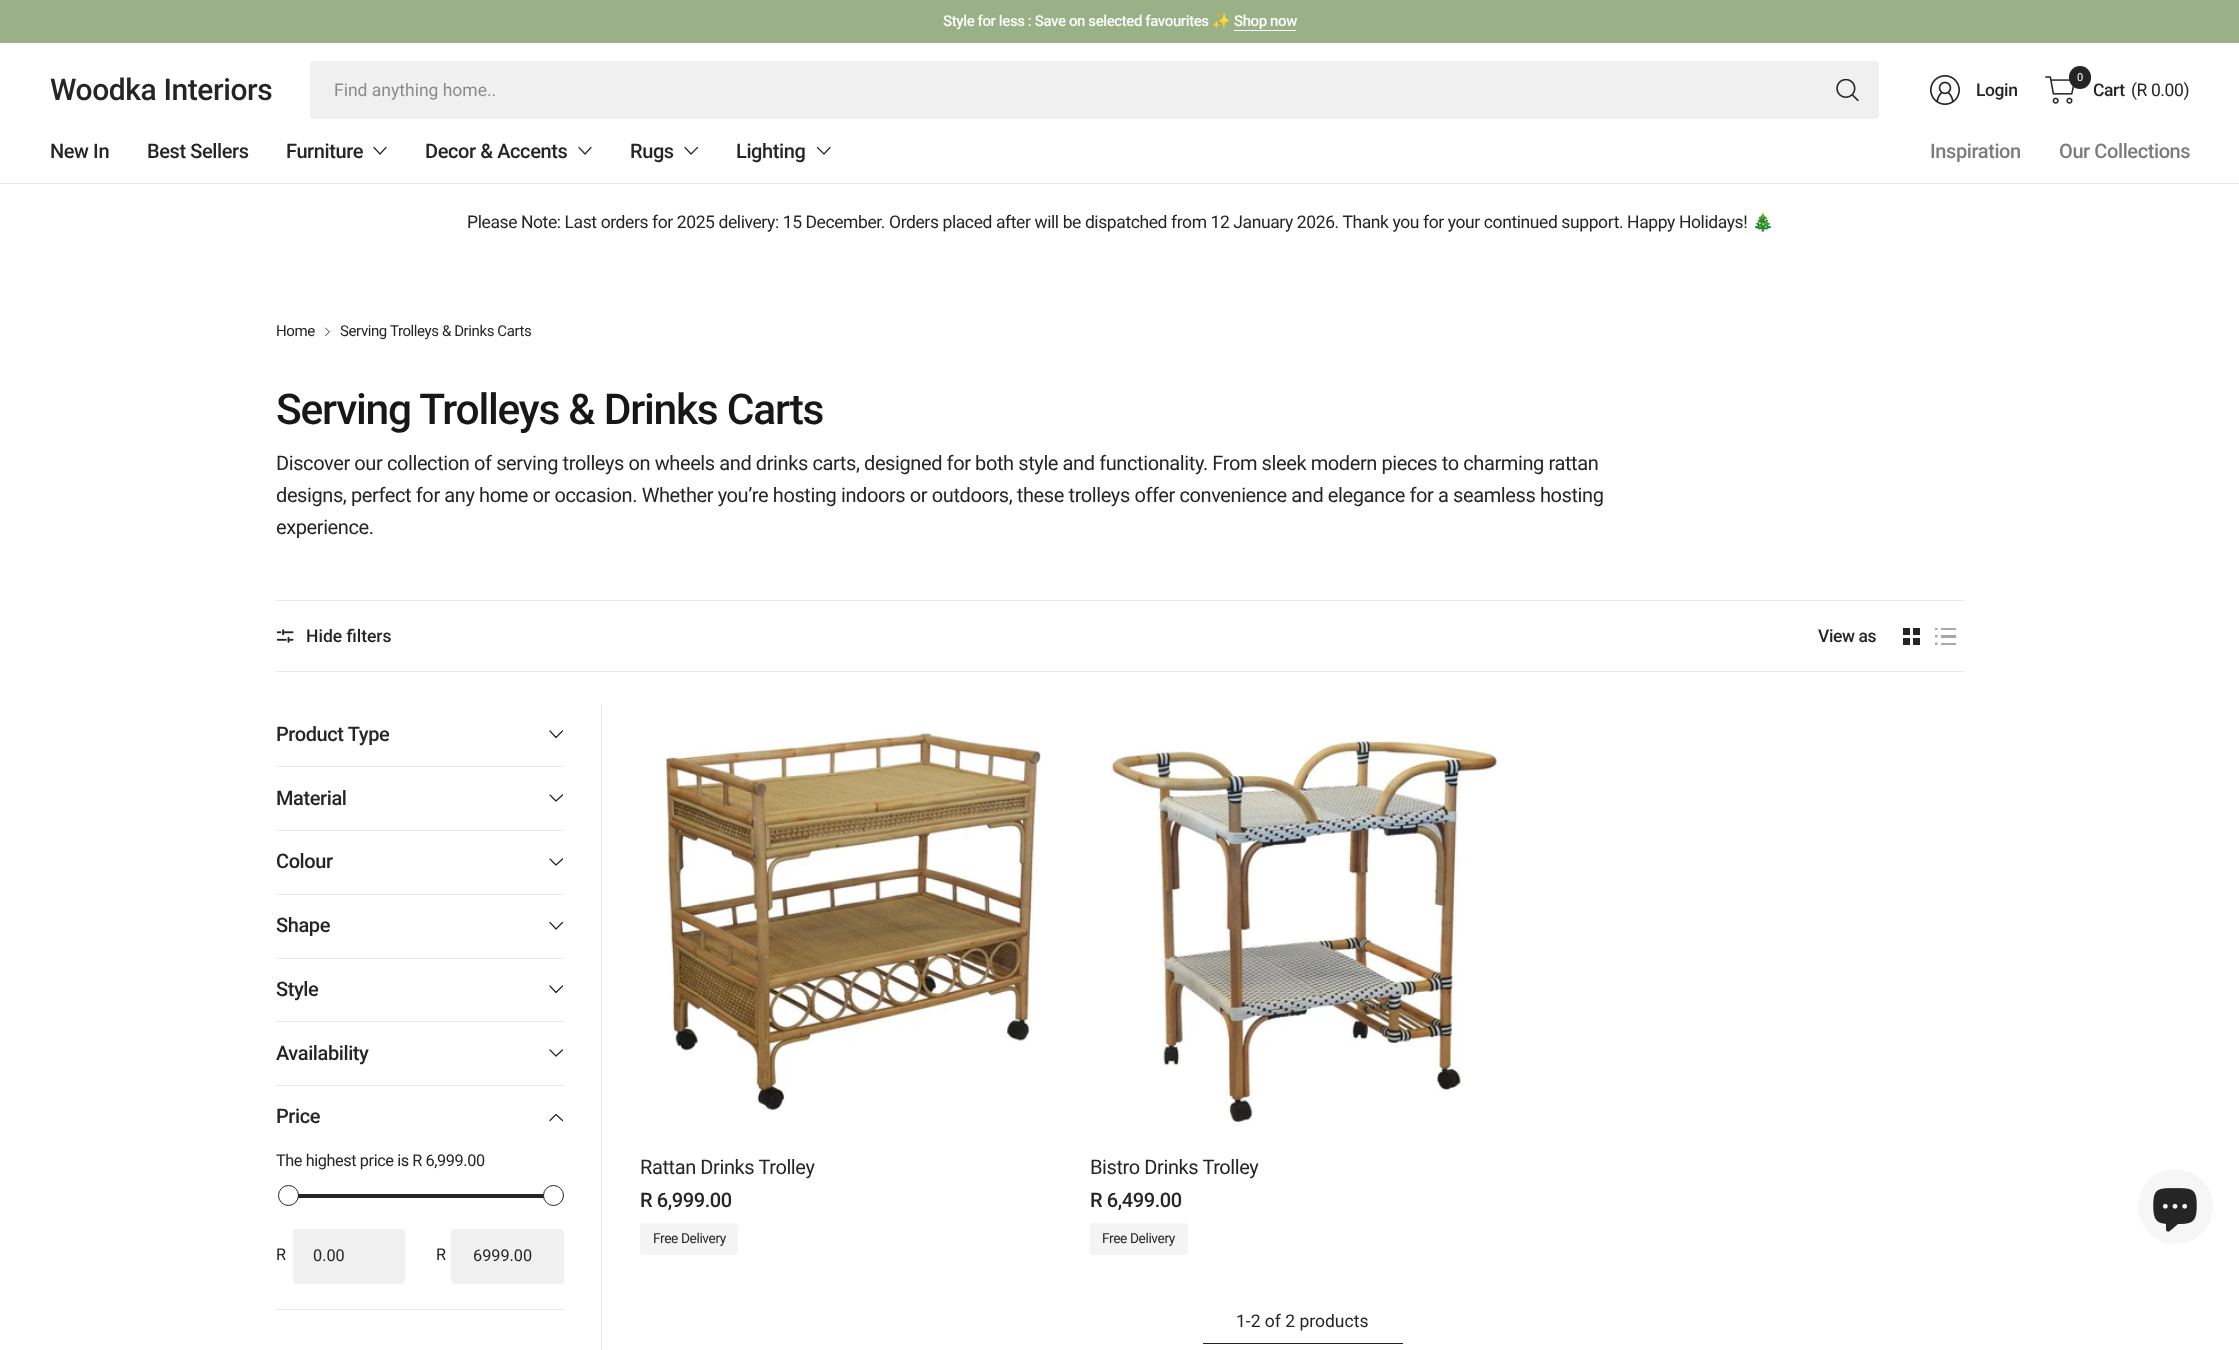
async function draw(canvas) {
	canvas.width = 2239;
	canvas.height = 1350;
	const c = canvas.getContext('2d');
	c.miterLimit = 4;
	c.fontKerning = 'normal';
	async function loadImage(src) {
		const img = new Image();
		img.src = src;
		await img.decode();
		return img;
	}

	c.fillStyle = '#fff';
	c.fillRect(0, 0, 2239, 1350);
	c.fillStyle = '#9ab188';
	c.fillRect(0, 0, 2239, 43);
	c.letterSpacing = '-0.4px';
	c.font = '500 15px Roboto';
	c.fillStyle = '#fff';
	c.fillText('Style for less : Save on selected favourites', 943, 26);
	c.font = '15px Noto Color Emoji';
	c.fillText('✨', 1212, 26);
	c.font = '500 15px Roboto';
	c.fillText('Shop now', 1234, 26);
	c.fillRect(1234, 30, 62, 1);
	c.font = '500 30px Roboto';
	c.fillStyle = '#252525';
	c.fillText('Woodka Interiors', 50, 100);
	c.fillStyle = '#f0f0f0';
	c.beginPath();
	c.roundRect(310, 61, 1569, 58, 4);
	c.fill();
	c.letterSpacing = '0px';
	c.font = '17.5px Roboto';
	c.fillStyle = '#8b8b8b';
	c.fillText('Find anything home..', 334, 96);
	c.drawImage(await loadImage('img1.png'), 1836, 79, 23, 22);
	c.drawImage(await loadImage('img2.png'), 1930, 75, 30, 30);
	c.letterSpacing = '-0.4px';
	c.font = '500 17.5px Roboto';
	c.fillStyle = '#252525';
	c.fillText('Login', 1976, 96);
	c.drawImage(await loadImage('img3.png'), 2045, 76, 29, 28);
	c.beginPath();
	c.roundRect(2069, 66, 22, 23, 11);
	c.fill();
	c.font = '11px Roboto';
	c.fillStyle = '#fff';
	c.fillText('0', 2077, 81);
	c.font = '500 17.5px Roboto';
	c.fillStyle = '#252525';
	c.fillText('Cart', 2093, 96);
	c.font = '17.5px Roboto';
	c.fillText('(R 0.00)', 2131, 96);
	c.font = '500 20px Roboto';
	for (const [text, x, y] of [
		['New In', 50, 158],
		['Best Sellers', 147, 158],
		['Furniture', 286, 158],
	]) {
		c.fillText(text, x, y);
	}
	c.beginPath();
	c.moveTo(386, 147.5);
	c.lineTo(380, 154);
	c.lineTo(374, 147.5);
	c.strokeStyle = '#252525';
	c.lineWidth = 1.2;
	c.lineCap = 'round';
	c.lineJoin = 'round';
	c.stroke();
	c.fillText('Decor & Accents', 425, 158);
	c.beginPath();
	c.moveTo(591, 147.5);
	c.lineTo(585, 154);
	c.lineTo(579, 147.5);
	c.stroke();
	c.fillText('Rugs', 630, 158);
	c.beginPath();
	c.moveTo(697.5, 147.5);
	c.lineTo(691, 154);
	c.lineTo(685, 147.5);
	c.stroke();
	c.fillText('Lighting', 736, 158);
	c.beginPath();
	c.moveTo(830, 147.5);
	c.lineTo(824, 154);
	c.lineTo(817.5, 147.5);
	c.stroke();
	c.fillStyle = '#7c7c7c';
	c.fillText('Inspiration', 1930, 158);
	c.fillText('Our Collections', 2059, 158);
	c.fillStyle = '#e9e9e9';
	c.fillRect(0, 183, 2239, 1);
	c.font = '17.5px Roboto';
	c.fillStyle = '#252525';
	c.fillText('Please Note: Last orders for 2025 delivery: 15 December. Orders placed after will be dispatched from 12 January 2026. Thank you for your continued support. Happy Holidays!', 467, 228);
	c.font = '17.5px Noto Color Emoji';
	c.fillText('🎄', 1752, 228);
	c.font = '15px Roboto';
	c.fillText('Home', 276, 336);
	c.beginPath();
	c.moveTo(325.5, 328);
	c.lineTo(329.5, 332);
	c.lineTo(325.5, 335.5);
	c.lineWidth = 0.9;
	c.stroke();
	c.fillText('Serving Trolleys & Drinks Carts', 340, 336);
	c.letterSpacing = '-1.25px';
	c.font = '500 42.5px Roboto';
	c.fillStyle = '#171717';
	c.fillText('Serving Trolleys & Drinks Carts', 276, 424);
	c.letterSpacing = '-0.4px';
	c.font = '20px Roboto';
	c.fillStyle = '#252525';
	for (const [text, x, y] of [
		['Discover our collection of serving trolleys on wheels and drinks carts, designed for both style and functionality. From sleek modern pieces to charming rattan', 276, 470],
		['designs, perfect for any home or occasion. Whether you’re hosting indoors or outdoors, these trolleys offer convenience and elegance for a seamless hosting', 276, 502],
		['experience.', 276, 534],
	]) {
		c.fillText(text, x, y);
	}
	c.fillStyle = '#e9e9e9';
	c.fillRect(276, 600, 1688, 1);
	c.fillRect(276, 671, 1688, 1);
	c.drawImage(await loadImage('img4.png'), 276, 629, 18, 14);
	c.letterSpacing = '0px';
	c.font = '500 17.5px Roboto';
	c.fillStyle = '#252525';
	c.fillText('Hide filters', 306, 642);
	c.letterSpacing = '-0.4px';
	c.fillText('View as', 1818, 642);
	c.drawImage(await loadImage('img5.png'), 1903, 628, 17, 17);
	c.drawImage(await loadImage('img6.png'), 1935, 628, 21, 17);
	c.fillStyle = '#e9e9e9';
	c.fillRect(276, 766, 288, 1);
	c.font = '500 20px Roboto';
	c.fillStyle = '#252525';
	c.fillText('Product Type', 276, 741);
	c.beginPath();
	c.moveTo(562.5, 731);
	c.lineTo(556, 737.5);
	c.lineTo(550, 731);
	c.lineWidth = 1.2;
	c.stroke();
	c.fillStyle = '#e9e9e9';
	c.fillRect(276, 830, 288, 1);
	c.fillStyle = '#252525';
	c.fillText('Material', 276, 805);
	c.beginPath();
	c.moveTo(562.5, 795);
	c.lineTo(556, 801);
	c.lineTo(550, 795);
	c.stroke();
	c.fillStyle = '#e9e9e9';
	c.fillRect(276, 894, 288, 1);
	c.fillStyle = '#252525';
	c.fillText('Colour', 276, 868);
	c.beginPath();
	c.moveTo(562.5, 859);
	c.lineTo(556, 865);
	c.lineTo(550, 859);
	c.stroke();
	c.fillStyle = '#e9e9e9';
	c.fillRect(276, 958, 288, 1);
	c.fillStyle = '#252525';
	c.fillText('Shape', 276, 932);
	c.beginPath();
	c.moveTo(562.5, 922.5);
	c.lineTo(556, 929);
	c.lineTo(550, 922.5);
	c.stroke();
	c.fillStyle = '#e9e9e9';
	c.fillRect(276, 1021, 288, 1);
	c.fillStyle = '#252525';
	c.fillText('Style', 276, 996);
	c.beginPath();
	c.moveTo(562.5, 986);
	c.lineTo(556, 992.5);
	c.lineTo(550, 986);
	c.stroke();
	c.fillStyle = '#e9e9e9';
	c.fillRect(276, 1085, 288, 1);
	c.fillStyle = '#252525';
	c.fillText('Availability', 276, 1060);
	c.beginPath();
	c.moveTo(562.5, 1050);
	c.lineTo(556, 1056);
	c.lineTo(550, 1050);
	c.stroke();
	c.fillStyle = '#e9e9e9';
	c.fillRect(276, 1309, 288, 1);
	c.fillStyle = '#252525';
	c.fillText('Price', 276, 1123);
	c.beginPath();
	c.moveTo(562.5, 1120.5);
	c.lineTo(556, 1114.5);
	c.lineTo(550, 1120.5);
	c.stroke();
	c.font = '16.25px Roboto';
	c.fillText('The highest price is R 6,999.00', 276, 1166);
	c.fillRect(298, 1194, 246, 4);
	c.fillStyle = '#fff';
	c.beginPath();
	c.arc(288.5, 1195.5, 10, 0, 2 * Math.PI);
	c.fill();
	c.lineWidth = 1;
	c.stroke();
	c.beginPath();
	c.arc(553.5, 1195.5, 10, 0, 2 * Math.PI);
	c.fill();
	c.stroke();
	c.fillStyle = '#252525';
	c.fillText('R', 276, 1260);
	c.fillStyle = '#f0f0f0';
	c.beginPath();
	c.roundRect(293, 1229, 112, 55, 4);
	c.fill();
	c.letterSpacing = '0px';
	c.fillStyle = '#252525';
	c.fillText('0.00', 313, 1261);
	c.letterSpacing = '-0.4px';
	c.fillText('R', 436, 1260);
	c.fillStyle = '#f0f0f0';
	c.beginPath();
	c.roundRect(451, 1229, 113, 55, 4);
	c.fill();
	c.letterSpacing = '0px';
	c.fillStyle = '#252525';
	c.fillText('6999.00', 473, 1261);
	c.fillStyle = '#e9e9e9';
	c.fillRect(601, 704, 1, 646);
	c.drawImage(await loadImage('img7.png'), 664, 731, 377, 380);
	c.letterSpacing = '-0.4px';
	c.font = '20px Roboto';
	c.fillStyle = '#252525';
	c.fillText('Rattan Drinks Trolley', 640, 1174);
	c.font = '500 20px Roboto';
	c.fillText('R 6,999.00', 640, 1207);
	c.fillStyle = '#f4f4f4';
	c.beginPath();
	c.roundRect(640, 1223, 98, 32, 4);
	c.fill();
	c.font = '13.75px Roboto';
	c.fillStyle = '#252525';
	c.fillText('Free Delivery', 653, 1243);
	c.drawImage(await loadImage('img8.png'), 1110, 740, 388, 385);
	c.font = '20px Roboto';
	c.fillText('Bistro Drinks Trolley', 1090, 1174);
	c.font = '500 20px Roboto';
	c.fillText('R 6,499.00', 1090, 1207);
	c.fillStyle = '#f4f4f4';
	c.beginPath();
	c.roundRect(1090, 1223, 98, 32, 4);
	c.fill();
	c.font = '13.75px Roboto';
	c.fillStyle = '#252525';
	c.fillText('Free Delivery', 1102, 1243);
	c.letterSpacing = '0px';
	c.font = '17.5px Roboto';
	c.fillText('1-2 of 2 products', 1236, 1327);
	c.fillRect(1203, 1343, 200, 1);
	c.fillStyle = '#f6f6f6';
	c.beginPath();
	c.arc(2175.5, 1206.5, 37.5, 0, 2 * Math.PI);
	c.fill();
	c.drawImage(await loadImage('img9.png'), 2153, 1188, 44, 44);
}

draw(document.querySelector('canvas'));
